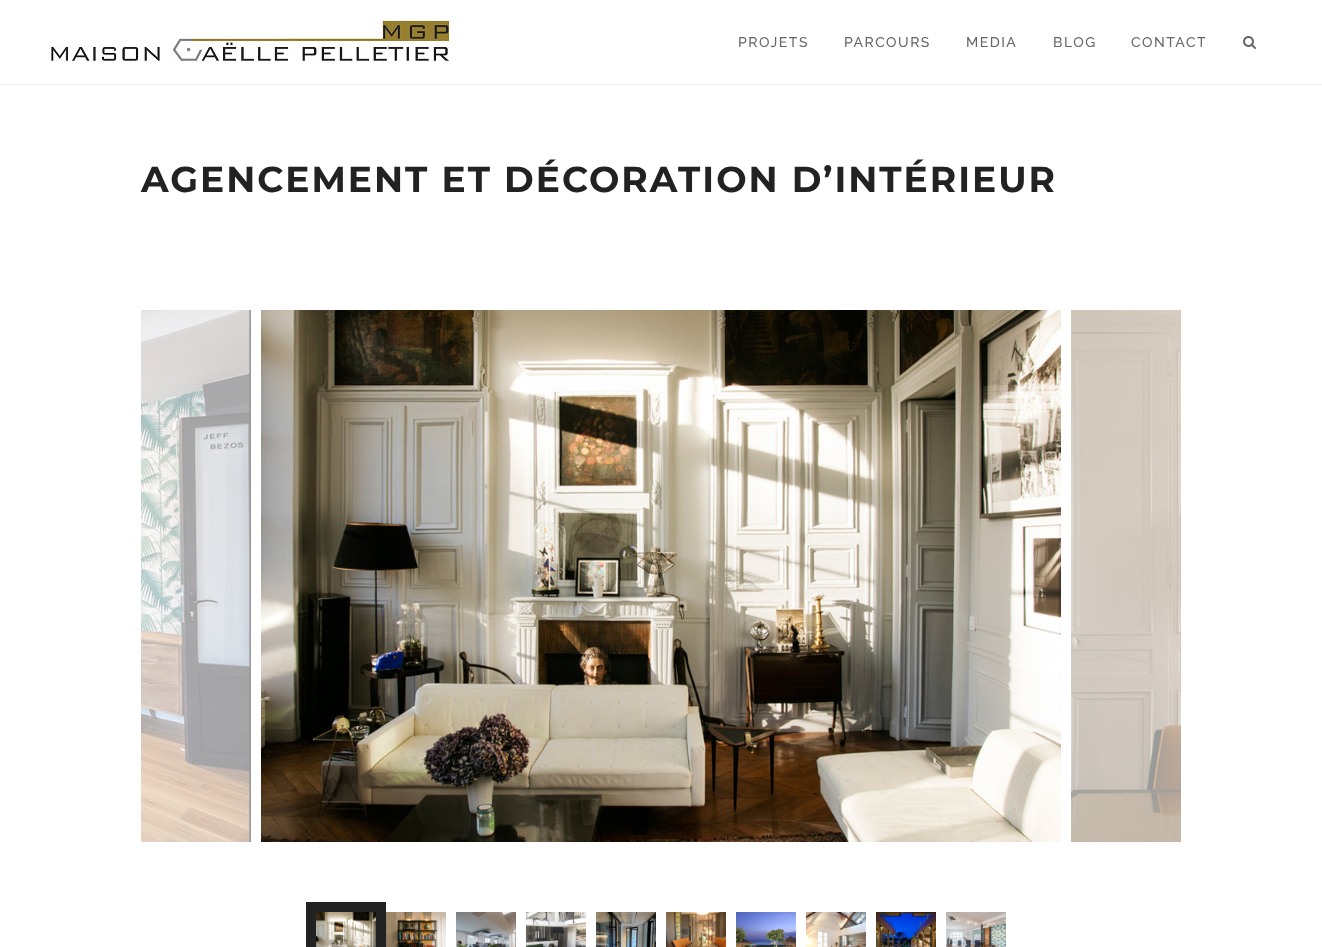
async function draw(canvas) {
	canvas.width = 1322;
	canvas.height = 947;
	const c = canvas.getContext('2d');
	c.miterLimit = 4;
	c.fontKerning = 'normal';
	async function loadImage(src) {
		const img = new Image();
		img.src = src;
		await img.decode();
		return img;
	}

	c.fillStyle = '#fff';
	c.fillRect(0, 0, 1322, 947);
	c.fillStyle = '#efefef';
	c.fillRect(0, 84, 1322, 1);
	c.drawImage(await loadImage('img1.png'), 50, 20, 400, 43);
	c.letterSpacing = '1.5px';
	c.font = '500 14px Raleway';
	c.fillStyle = '#666';
	for (const [text, x, y] of [
		['PROJETS', 738, 47],
		['PARCOURS', 844, 47],
		['MEDIA', 966, 47],
		['BLOG', 1053, 47],
		['CONTACT', 1131, 47],
	]) {
		c.fillText(text, x, y);
	}
	c.drawImage(await loadImage('img2.png'), 1243, 36, 13, 13);
	c.letterSpacing = '2px';
	c.font = 'bold 36px Montserrat';
	c.fillStyle = '#222';
	c.fillText('AGENCEMENT ET DÉCORATION D’INTÉRIEUR', 141, 192);
	c.drawImage(await loadImage('img3.png'), 141, 310, 110, 532);
	c.drawImage(await loadImage('img4.png'), 261, 310, 800, 532);
	c.drawImage(await loadImage('img5.png'), 1071, 310, 110, 532);
	c.fillRect(306, 902, 80, 45);
	c.drawImage(await loadImage('img6.png'), 316, 912, 60, 35);
	c.drawImage(await loadImage('img7.png'), 386, 912, 60, 35);
	c.drawImage(await loadImage('img8.png'), 456, 912, 60, 35);
	c.drawImage(await loadImage('img9.png'), 526, 912, 60, 35);
	c.drawImage(await loadImage('img10.png'), 596, 912, 60, 35);
	c.drawImage(await loadImage('img11.png'), 666, 912, 60, 35);
	c.drawImage(await loadImage('img12.png'), 736, 912, 60, 35);
	c.drawImage(await loadImage('img13.png'), 806, 912, 60, 35);
	c.drawImage(await loadImage('img14.png'), 876, 912, 60, 35);
	c.drawImage(await loadImage('img15.png'), 946, 912, 60, 35);
}

draw(document.querySelector('canvas'));
